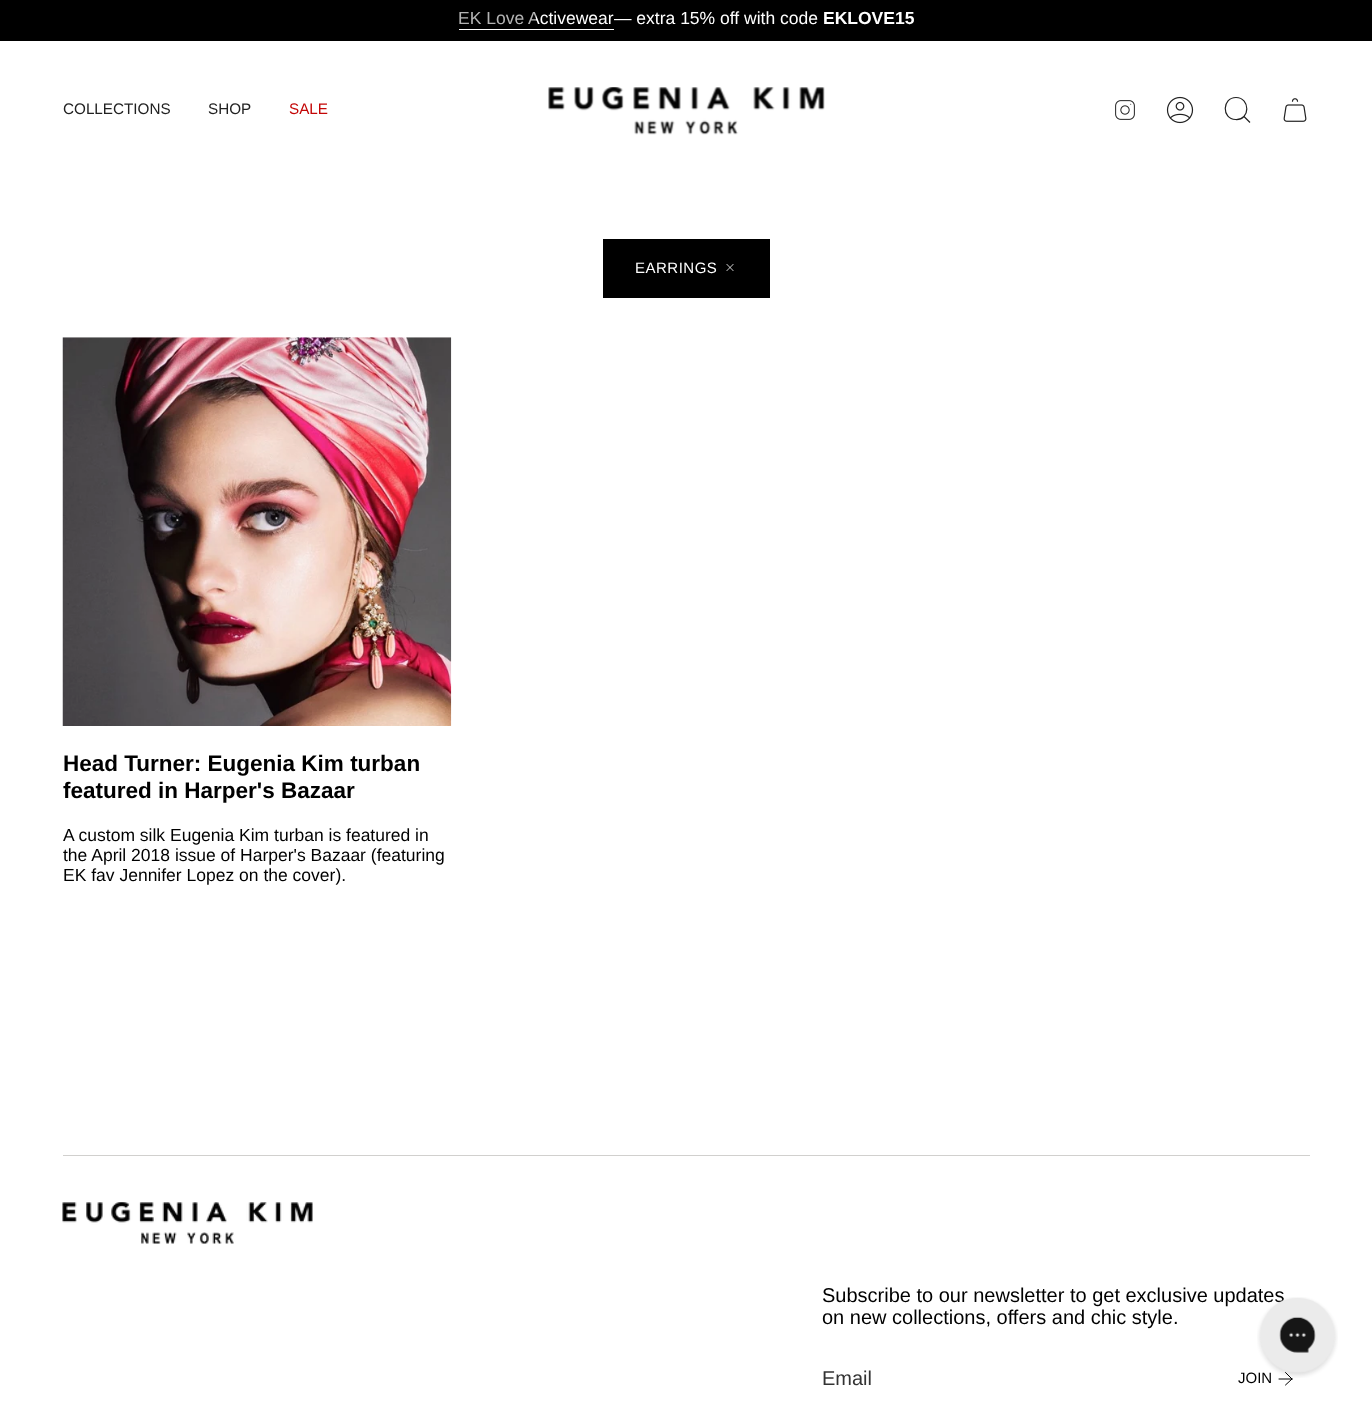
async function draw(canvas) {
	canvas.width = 1372;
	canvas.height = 1406;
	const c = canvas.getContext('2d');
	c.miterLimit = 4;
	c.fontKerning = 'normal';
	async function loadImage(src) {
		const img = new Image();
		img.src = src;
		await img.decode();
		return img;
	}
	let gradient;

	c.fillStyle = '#fff';
	c.fillRect(0, 0, 1372, 1406);
	c.fillStyle = '#000';
	c.fillRect(0, 0, 1372, 41);
	c.font = '17.5px Liberation Sans';
	c.fillStyle = '#fff';
	c.fillText('— extra 15% off with code', 614, 24);
	gradient = c.createLinearGradient(458, 19, 614, 19);
	gradient.addColorStop(0, '#b3b3b3');
	gradient.addColorStop(0.5, '#b3b3b3');
	gradient.addColorStop(0.5, '#fff');
	gradient.addColorStop(1, '#fff');
	c.fillStyle = gradient;
	c.fillText('EK Love Activewear', 458, 24);
	c.fillStyle = '#fff';
	c.fillRect(459, 29, 155, 1);
	c.font = 'bold 17.5px Liberation Sans';
	c.fillText('EKLOVE15', 823, 24);
	c.font = '15.25px Liberation Sans';
	c.fillStyle = '#212121';
	c.fillText('COLLECTIONS', 63, 114);
	c.fillText('SHOP', 208, 114);
	c.fillStyle = '#c30606';
	c.fillText('SALE', 289, 114);
	c.drawImage(await loadImage('img1.png'), 548, 87, 277, 48);
	c.drawImage(await loadImage('img2.png'), 1115, 100, 20, 20);
	c.drawImage(await loadImage('img3.png'), 1166, 96, 28, 28);
	c.beginPath();
	c.moveTo(1236, 97.5);
	c.bezierCurveTo(1250.5, 97.5, 1250.5, 120.5, 1235.5, 119.5);
	c.bezierCurveTo(1221.5, 119, 1222, 97.5, 1236, 97.5);
	c.closePath();
	c.moveTo(1244, 116.5);
	c.lineTo(1250, 122.5);
	c.strokeStyle = '#212121';
	c.lineWidth = 1.2;
	c.stroke();
	c.drawImage(await loadImage('img4.png'), 1283, 98, 24, 24);
	c.fillStyle = '#000';
	c.fillRect(603, 239, 167, 59);
	c.letterSpacing = '0.5px';
	c.font = '15px Liberation Sans';
	c.fillStyle = '#fff';
	c.fillText('EARRINGS', 635, 273);
	c.drawImage(await loadImage('img5.png'), 726, 264, 8, 7);
	c.drawImage(await loadImage('img6.png'), 62, 337, 390, 389);
	c.letterSpacing = '0px';
	c.font = 'bold 22.5px Liberation Sans';
	c.fillStyle = '#000';
	c.fillText('Head Turner: Eugenia Kim turban', 63, 771);
	c.fillText('featured in Harper\'s Bazaar', 63, 798);
	c.font = '17.5px Liberation Sans';
	for (const [text, x, y] of [
		['A custom silk Eugenia Kim turban is featured in', 63, 841],
		['the April 2018 issue of Harper\'s Bazaar (featuring', 63, 861],
		['EK fav Jennifer Lopez on the cover).', 63, 881],
	]) {
		c.fillText(text, x, y);
	}
	c.fillStyle = '#d1d0ce';
	c.fillRect(63, 1155, 1247, 1);
	c.drawImage(await loadImage('img7.png'), 62, 1202, 251, 42);
	c.font = '20px Liberation Sans';
	c.fillStyle = '#000';
	c.fillText('Subscribe to our newsletter to get exclusive updates', 822, 1302);
	c.fillText('on new collections, offers and chic style.', 822, 1324);
	c.fillStyle = '#333';
	c.fillText('Email', 822, 1385);
	c.font = '15px Liberation Sans';
	c.fillStyle = '#000';
	c.fillText('JOIN', 1238, 1383);
	c.beginPath();
	c.moveTo(1279, 1379);
	c.lineTo(1292, 1379);
	c.moveTo(1292, 1379);
	c.lineTo(1285.5, 1372.5);
	c.moveTo(1292, 1379);
	c.lineTo(1285.5, 1385);
	c.strokeStyle = '#000';
	c.lineWidth = 1;
	c.lineCap = 'round';
	c.lineJoin = 'round';
	c.stroke();
	c.drawImage(await loadImage('img8.png'), 1257, 1297, 81, 81);
}

draw(document.querySelector('canvas'));
